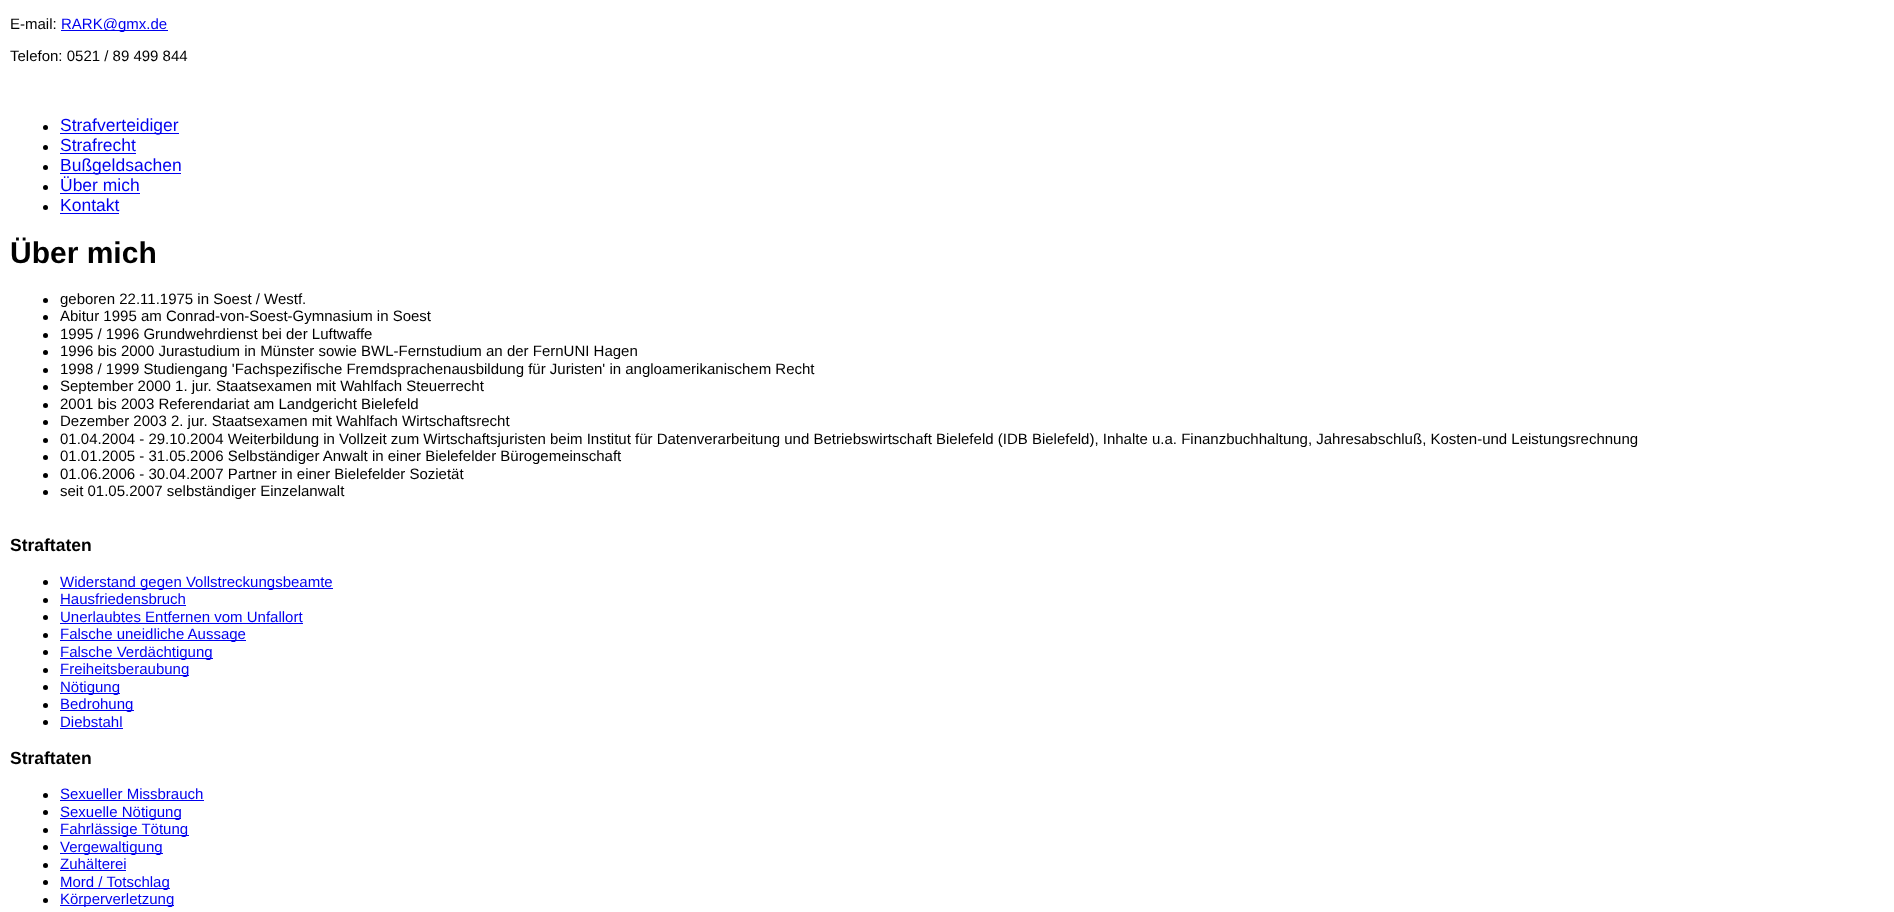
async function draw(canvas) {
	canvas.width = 1894;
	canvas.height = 912;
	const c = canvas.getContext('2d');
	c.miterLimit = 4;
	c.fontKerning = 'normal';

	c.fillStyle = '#fff';
	c.fillRect(0, 0, 1894, 912);
	c.font = '15px Liberation Sans';
	c.fillStyle = '#000';
	c.fillText('E-mail:', 10, 29);
	c.fillStyle = '#00e';
	c.fillRect(61, 30, 107, 1);
	c.fillText('RARK@gmx.de', 61, 29);
	c.fillStyle = '#000';
	c.fillText('Telefon: 0521 / 89 499 844', 10, 61);
	c.beginPath();
	c.arc(45.5, 127.5, 2.5, 0, 2 * Math.PI);
	c.fill();
	c.fillStyle = '#00e';
	c.fillRect(60, 133, 119, 1);
	c.font = '17.5px Liberation Sans';
	c.fillText('Strafverteidiger', 60, 131);
	c.fillStyle = '#000';
	c.beginPath();
	c.arc(45.5, 147.5, 2.5, 0, 2 * Math.PI);
	c.fill();
	c.fillStyle = '#00e';
	c.fillText('Strafrecht', 60, 151);
	c.fillRect(60, 153, 76, 1);
	c.fillStyle = '#000';
	c.beginPath();
	c.arc(45.5, 167.5, 2.5, 0, 2 * Math.PI);
	c.fill();
	c.fillStyle = '#00e';
	c.fillRect(60, 173, 121, 1);
	c.fillText('Bußgeldsachen', 60, 171);
	c.fillStyle = '#000';
	c.beginPath();
	c.arc(45.5, 187.5, 2.5, 0, 2 * Math.PI);
	c.fill();
	c.fillStyle = '#00e';
	c.fillText('Über mich', 60, 191);
	c.fillRect(60, 193, 80, 1);
	c.fillStyle = '#000';
	c.beginPath();
	c.arc(45.5, 207.5, 2.5, 0, 2 * Math.PI);
	c.fill();
	c.fillStyle = '#00e';
	c.fillText('Kontakt', 60, 211);
	c.fillRect(60, 213, 59, 1);
	c.font = 'bold 30px Liberation Sans';
	c.fillStyle = '#000';
	c.fillText('Über mich', 10, 263);
	c.beginPath();
	c.arc(45.5, 300.5, 2.5, 0, 2 * Math.PI);
	c.fill();
	c.font = '15px Liberation Sans';
	c.fillText('geboren 22.11.1975 in Soest / Westf.', 60, 304);
	c.beginPath();
	c.arc(45.5, 317.5, 2.5, 0, 2 * Math.PI);
	c.fill();
	c.fillText('Abitur 1995 am Conrad-von-Soest-Gymnasium in Soest', 60, 321);
	c.beginPath();
	c.arc(45.5, 335.5, 2.5, 0, 2 * Math.PI);
	c.fill();
	c.fillText('1995 / 1996 Grundwehrdienst bei der Luftwaffe', 60, 339);
	c.beginPath();
	c.arc(45.5, 352.5, 2.5, 0, 2 * Math.PI);
	c.fill();
	c.fillText('1996 bis 2000 Jurastudium in Münster sowie BWL-Fernstudium an der FernUNI Hagen', 60, 356);
	c.beginPath();
	c.arc(45.5, 370.5, 2.5, 0, 2 * Math.PI);
	c.fill();
	c.fillText('1998 / 1999 Studiengang \'Fachspezifische Fremdsprachenausbildung für Juristen\' in angloamerikanischem Recht', 60, 374);
	c.beginPath();
	c.arc(45.5, 387.5, 2.5, 0, 2 * Math.PI);
	c.fill();
	c.fillText('September 2000 1. jur. Staatsexamen mit Wahlfach Steuerrecht', 60, 391);
	c.beginPath();
	c.arc(45.5, 405.5, 2.5, 0, 2 * Math.PI);
	c.fill();
	c.fillText('2001 bis 2003 Referendariat am Landgericht Bielefeld', 60, 409);
	c.beginPath();
	c.arc(45.5, 422.5, 2.5, 0, 2 * Math.PI);
	c.fill();
	c.fillText('Dezember 2003 2. jur. Staatsexamen mit Wahlfach Wirtschaftsrecht', 60, 426);
	c.beginPath();
	c.arc(45.5, 440.5, 2.5, 0, 2 * Math.PI);
	c.fill();
	c.fillText('01.04.2004 - 29.10.2004 Weiterbildung in Vollzeit zum Wirtschaftsjuristen beim Institut für Datenverarbeitung und Betriebswirtschaft Bielefeld (IDB Bielefeld), Inhalte u.a. Finanzbuchhaltung, Jahresabschluß, Kosten-und Leistungsrechnung', 60, 444);
	c.beginPath();
	c.arc(45.5, 457.5, 2.5, 0, 2 * Math.PI);
	c.fill();
	c.fillText('01.01.2005 - 31.05.2006 Selbständiger Anwalt in einer Bielefelder Bürogemeinschaft', 60, 461);
	c.beginPath();
	c.arc(45.5, 475.5, 2.5, 0, 2 * Math.PI);
	c.fill();
	c.fillText('01.06.2006 - 30.04.2007 Partner in einer Bielefelder Sozietät', 60, 479);
	c.beginPath();
	c.arc(45.5, 492.5, 2.5, 0, 2 * Math.PI);
	c.fill();
	c.fillText('seit 01.05.2007 selbständiger Einzelanwalt', 60, 496);
	c.font = 'bold 17.5px Liberation Sans';
	c.fillText('Straftaten', 10, 551);
	c.beginPath();
	c.arc(45.5, 582.5, 2.5, 0, 2 * Math.PI);
	c.fill();
	c.fillStyle = '#00e';
	c.fillRect(60, 588, 273, 1);
	c.font = '15px Liberation Sans';
	c.fillText('Widerstand gegen Vollstreckungsbeamte', 60, 587);
	c.fillStyle = '#000';
	c.beginPath();
	c.arc(45.5, 600.5, 2.5, 0, 2 * Math.PI);
	c.fill();
	c.fillStyle = '#00e';
	c.fillText('Hausfriedensbruch', 60, 604);
	c.fillRect(60, 605, 126, 1);
	c.fillStyle = '#000';
	c.beginPath();
	c.arc(45.5, 617.5, 2.5, 0, 2 * Math.PI);
	c.fill();
	c.fillStyle = '#00e';
	c.fillText('Unerlaubtes Entfernen vom Unfallort', 60, 622);
	c.fillRect(60, 623, 243, 1);
	c.fillStyle = '#000';
	c.beginPath();
	c.arc(45.5, 635.5, 2.5, 0, 2 * Math.PI);
	c.fill();
	c.fillStyle = '#00e';
	c.fillRect(60, 640, 186, 1);
	c.fillText('Falsche uneidliche Aussage', 60, 639);
	c.fillStyle = '#000';
	c.beginPath();
	c.arc(45.5, 652.5, 2.5, 0, 2 * Math.PI);
	c.fill();
	c.fillStyle = '#00e';
	c.fillRect(60, 658, 153, 1);
	c.fillText('Falsche Verdächtigung', 60, 657);
	c.fillStyle = '#000';
	c.beginPath();
	c.arc(45.5, 670.5, 2.5, 0, 2 * Math.PI);
	c.fill();
	c.fillStyle = '#00e';
	c.fillRect(60, 675, 129, 1);
	c.fillText('Freiheitsberaubung', 60, 674);
	c.fillStyle = '#000';
	c.beginPath();
	c.arc(45.5, 687.5, 2.5, 0, 2 * Math.PI);
	c.fill();
	c.fillStyle = '#00e';
	c.fillRect(60, 693, 60, 1);
	c.fillText('Nötigung', 60, 692);
	c.fillStyle = '#000';
	c.beginPath();
	c.arc(45.5, 705.5, 2.5, 0, 2 * Math.PI);
	c.fill();
	c.fillStyle = '#00e';
	c.fillRect(60, 710, 74, 1);
	c.fillText('Bedrohung', 60, 709);
	c.fillStyle = '#000';
	c.beginPath();
	c.arc(45.5, 722.5, 2.5, 0, 2 * Math.PI);
	c.fill();
	c.fillStyle = '#00e';
	c.fillText('Diebstahl', 60, 727);
	c.fillRect(60, 728, 63, 1);
	c.font = 'bold 17.5px Liberation Sans';
	c.fillStyle = '#000';
	c.fillText('Straftaten', 10, 764);
	c.beginPath();
	c.arc(45.5, 795.5, 2.5, 0, 2 * Math.PI);
	c.fill();
	c.font = '15px Liberation Sans';
	c.fillStyle = '#00e';
	c.fillText('Sexueller Missbrauch', 60, 799);
	c.fillRect(60, 800, 144, 1);
	c.fillStyle = '#000';
	c.beginPath();
	c.arc(45.5, 812.5, 2.5, 0, 2 * Math.PI);
	c.fill();
	c.fillStyle = '#00e';
	c.fillRect(60, 818, 121, 1);
	c.fillText('Sexuelle Nötigung', 60, 817);
	c.fillStyle = '#000';
	c.beginPath();
	c.arc(45.5, 830.5, 2.5, 0, 2 * Math.PI);
	c.fill();
	c.fillStyle = '#00e';
	c.fillRect(60, 835, 129, 1);
	c.fillText('Fahrlässige Tötung', 60, 834);
	c.fillStyle = '#000';
	c.beginPath();
	c.arc(45.5, 847.5, 2.5, 0, 2 * Math.PI);
	c.fill();
	c.fillStyle = '#00e';
	c.fillRect(60, 853, 103, 1);
	c.fillText('Vergewaltigung', 60, 852);
	c.fillStyle = '#000';
	c.beginPath();
	c.arc(45.5, 865.5, 2.5, 0, 2 * Math.PI);
	c.fill();
	c.fillStyle = '#00e';
	c.fillText('Zuhälterei', 60, 869);
	c.fillRect(60, 870, 66, 1);
	c.fillStyle = '#000';
	c.beginPath();
	c.arc(45.5, 882.5, 2.5, 0, 2 * Math.PI);
	c.fill();
	c.fillStyle = '#00e';
	c.fillRect(60, 888, 110, 1);
	c.fillText('Mord / Totschlag', 60, 887);
	c.fillStyle = '#000';
	c.beginPath();
	c.arc(45.5, 900.5, 2.5, 0, 2 * Math.PI);
	c.fill();
	c.fillStyle = '#00e';
	c.fillRect(60, 905, 114, 1);
	c.fillText('Körperverletzung', 60, 904);
}

draw(document.querySelector('canvas'));
